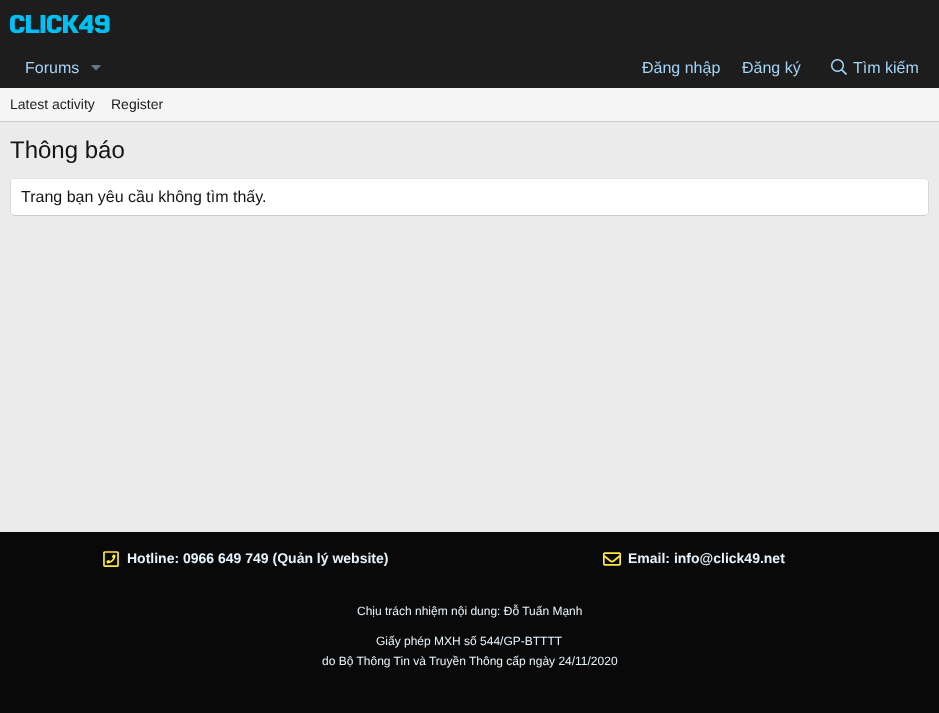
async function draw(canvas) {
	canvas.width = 939;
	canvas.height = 713;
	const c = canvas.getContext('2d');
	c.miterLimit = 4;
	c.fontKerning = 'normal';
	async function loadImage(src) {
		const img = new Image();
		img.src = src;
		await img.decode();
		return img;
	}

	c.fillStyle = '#ebebeb';
	c.fillRect(0, 0, 939, 713);
	c.fillStyle = '#1d1d1d';
	c.fillRect(0, 0, 939, 88);
	c.drawImage(await loadImage('img1.png'), 10, 15, 100, 18);
	c.font = '16px Liberation Sans';
	c.fillStyle = '#a3d4f5';
	c.fillText('Forums', 25, 73);
	c.drawImage(await loadImage('img2.png'), 91, 65, 10, 6);
	c.fillText('Đăng nhập', 642, 73);
	c.fillText('Đăng ký', 742, 73);
	c.drawImage(await loadImage('img3.png'), 831, 59, 16, 16);
	c.fillText('Tìm kiếm', 853, 73);
	c.fillStyle = '#f5f5f5';
	c.fillRect(0, 88, 939, 33);
	c.fillStyle = '#ccc';
	c.fillRect(0, 121, 939, 1);
	c.font = '14px Liberation Sans';
	c.fillStyle = '#1d1d1d';
	c.fillText('Latest activity', 10, 109);
	c.fillText('Register', 111, 109);
	c.font = '24px Liberation Sans';
	c.fillStyle = '#141414';
	c.fillText('Thông báo', 10, 158);
	c.fillStyle = '#fff';
	c.beginPath();
	c.roundRect(10, 178, 919, 38, 4);
	c.fill();
	c.beginPath();
	c.moveTo(11.5, 179.5);
	c.lineTo(14, 178.5);
	c.lineTo(925, 178.5);
	c.lineTo(927.5, 179.5);
	c.strokeStyle = '#e0e0e0';
	c.stroke();
	c.beginPath();
	c.moveTo(927.5, 179.5);
	c.bezierCurveTo(928, 180, 928.5, 181, 928.5, 182);
	c.lineTo(928.5, 212);
	c.bezierCurveTo(928.5, 213, 928, 214, 927.5, 214.5);
	c.strokeStyle = '#d6d6d6';
	c.stroke();
	c.beginPath();
	c.moveTo(927.5, 214.5);
	c.lineTo(925, 215.5);
	c.lineTo(14, 215.5);
	c.lineTo(11.5, 214.5);
	c.strokeStyle = '#ccc';
	c.stroke();
	c.beginPath();
	c.moveTo(11.5, 214.5);
	c.bezierCurveTo(11, 214, 10.5, 213, 10.5, 212);
	c.lineTo(10.5, 182);
	c.bezierCurveTo(10.5, 181, 11, 180, 11.5, 179.5);
	c.strokeStyle = '#d6d6d6';
	c.stroke();
	c.font = '16px Liberation Sans';
	c.fillStyle = '#141414';
	c.fillText('Trang bạn yêu cầu không tìm thấy.', 21, 202);
	c.fillStyle = '#090909';
	c.fillRect(0, 532, 939, 181);
	c.drawImage(await loadImage('img4.png'), 103, 551, 16, 16);
	c.font = 'bold 14px Liberation Sans';
	c.fillStyle = '#e8f4fc';
	c.fillText('Hotline: 0966 649 749 (Quản lý website)', 127, 563);
	c.drawImage(await loadImage('img5.png'), 603, 552, 18, 14);
	c.fillText('Email: info@click49.net', 628, 563);
	c.font = '12px Liberation Sans';
	for (const [text, x, y] of [
		['Chịu trách nhiệm nội dung: Đỗ Tuấn Mạnh', 357, 615],
		['Giấy phép MXH số 544/GP-BTTTT', 376, 645],
		['do Bộ Thông Tin và Truyền Thông cấp ngày 24/11/2020', 322, 665],
	]) {
		c.fillText(text, x, y);
	}
}

draw(document.querySelector('canvas'));
